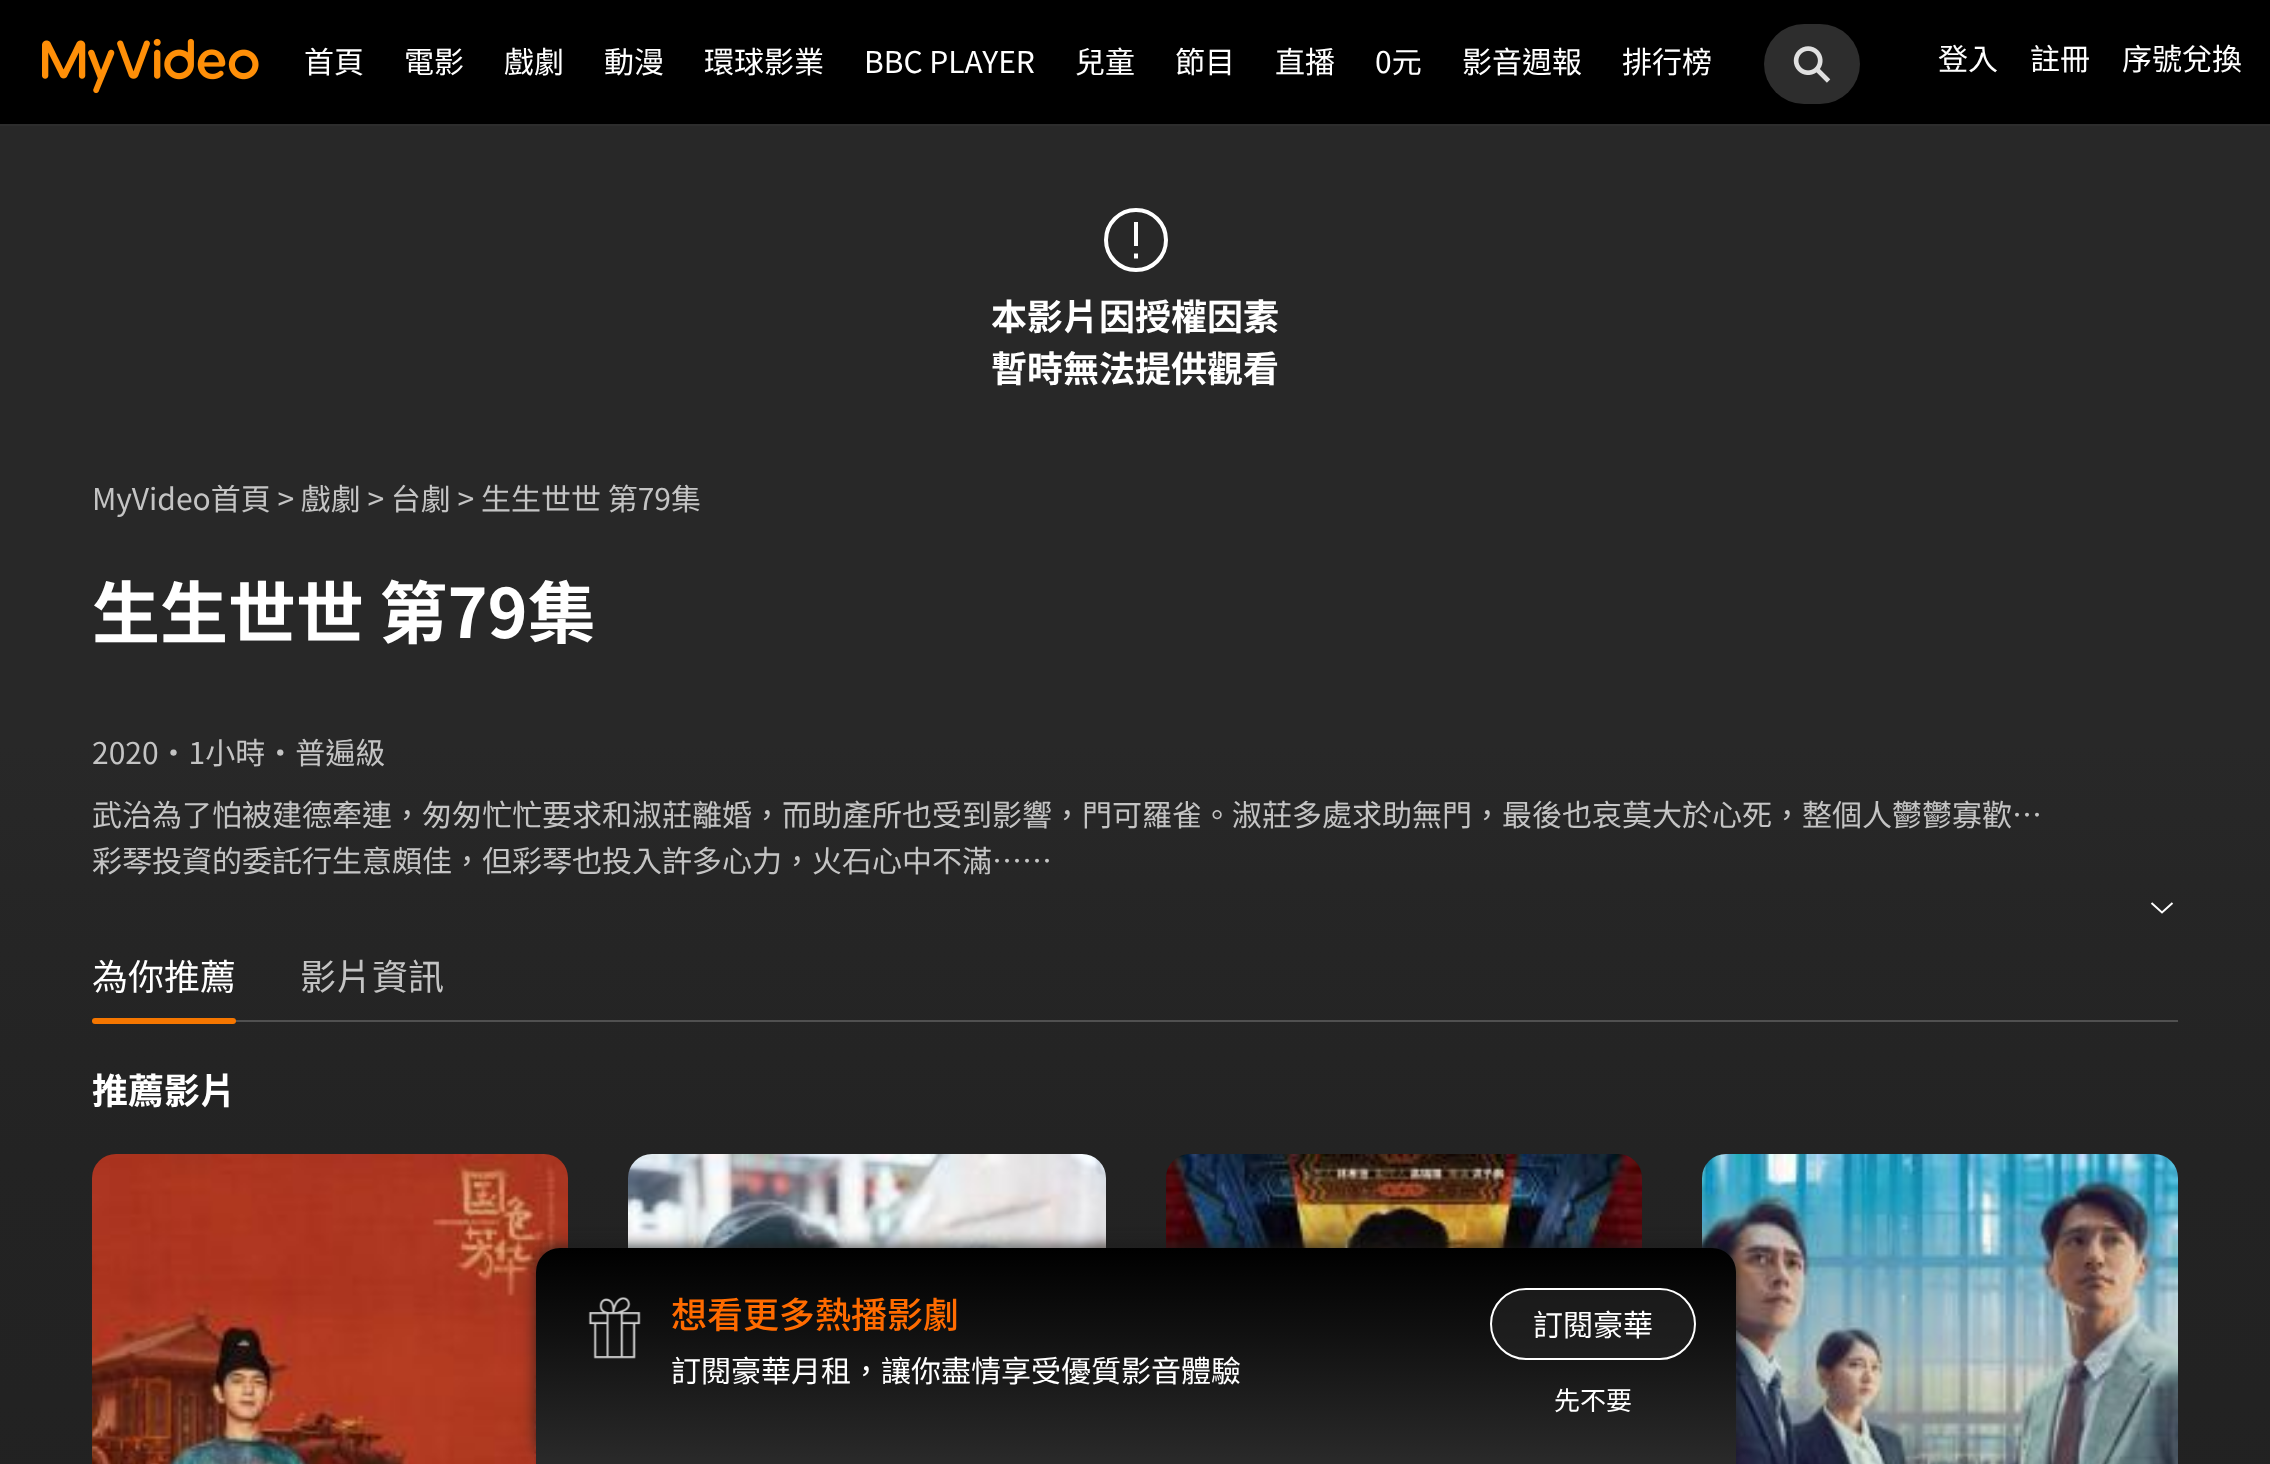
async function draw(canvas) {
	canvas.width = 2270;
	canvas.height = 1464;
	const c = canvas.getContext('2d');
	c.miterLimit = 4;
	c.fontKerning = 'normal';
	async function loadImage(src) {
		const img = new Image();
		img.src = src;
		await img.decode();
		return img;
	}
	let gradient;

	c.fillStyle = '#fff';
	c.fillRect(0, 0, 2270, 1464);
	c.fillStyle = '#000';
	c.fillRect(0, 0, 2270, 124);
	c.fillStyle = '#2d2d2d';
	c.fillRect(0, 124, 2270, 2);
	c.drawImage(await loadImage('img1.png'), 42, 38, 217, 56);
	c.font = '30px Noto Sans TC';
	c.fillStyle = '#fff';
	for (const [text, x, y] of [
		['首頁', 304, 73],
		['電影', 404, 73],
		['戲劇', 504, 73],
		['動漫', 604, 73],
		['環球影業', 704, 73],
		['BBC PLAYER', 864, 73],
		['兒童', 1075, 73],
		['節目', 1175, 73],
		['直播', 1275, 73],
		['0元', 1375, 73],
		['影音週報', 1462, 73],
		['排行榜', 1622, 73],
	]) {
		c.fillText(text, x, y);
	}
	c.fillStyle = '#2d2d2d';
	c.beginPath();
	c.roundRect(1764, 24, 96, 80, 40);
	c.fill();
	c.drawImage(await loadImage('img2.png'), 1793, 46, 38, 37);
	c.fillStyle = '#fff';
	for (const [text, x, y] of [
		['登入', 1938, 70],
		['註冊', 2030, 70],
		['序號兌換', 2122, 70],
	]) {
		c.fillText(text, x, y);
	}
	gradient = c.createLinearGradient(1135, 124, 1135, 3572);
	gradient.addColorStop(0.18, '#282828');
	gradient.addColorStop(0.24, '#252525');
	gradient.addColorStop(0.3, '#232323');
	gradient.addColorStop(0.44, '#212121');
	c.fillStyle = gradient;
	c.fillRect(0, 126, 2270, 1338);
	c.beginPath();
	c.arc(1136, 240, 30, 0, 2 * Math.PI);
	c.strokeStyle = '#fff';
	c.lineWidth = 4;
	c.stroke();
	c.fillStyle = '#fff';
	c.fillRect(1134, 222, 4, 24);
	c.beginPath();
	c.moveTo(1136, 258.5);
	c.lineTo(1136, 253.5);
	c.stroke();
	c.font = 'bold 36px Noto Sans TC';
	c.fillText('本影片因授權因素', 991, 330);
	c.fillText('暫時無法提供觀看', 991, 382);
	c.font = '30px Noto Sans TC';
	c.fillStyle = '#c4c4c4';
	c.fillText('MyVideo首頁 > 戲劇 > 台劇 > 生生世世 第79集', 92, 510);
	c.font = 'bold 68px Noto Sans TC';
	c.fillStyle = '#fff';
	c.fillText('生生世世 第79集', 92, 638);
	c.font = '30px Noto Sans TC';
	c.fillStyle = '#c4c4c4';
	for (const [text, x, y] of [
		['2020・1小時・普遍級', 92, 764],
		['武治為了怕被建德牽連，匆匆忙忙要求和淑莊離婚，而助產所也受到影響，門可羅雀。淑莊多處求助無門，最後也哀莫大於心死，整個人鬱鬱寡歡…', 92, 826],
		['彩琴投資的委託行生意頗佳，但彩琴也投入許多心力，火石心中不滿……', 92, 872],
	]) {
		c.fillText(text, x, y);
	}
	c.beginPath();
	c.moveTo(2172.5, 903);
	c.lineTo(2162, 912.5);
	c.lineTo(2151.5, 903);
	c.lineWidth = 2;
	c.stroke();
	c.fillStyle = '#505050';
	c.fillRect(92, 1020, 2086, 2);
	c.font = '36px Noto Sans TC';
	c.fillStyle = '#fff';
	c.fillText('為你推薦', 92, 990);
	c.fillStyle = '#c4c4c4';
	c.fillText('影片資訊', 300, 990);
	c.fillStyle = '#f57600';
	c.beginPath();
	c.roundRect(92, 1018, 144, 6, 3);
	c.fill();
	c.font = 'bold 36px Noto Sans TC';
	c.fillStyle = '#fff';
	c.fillText('推薦影片', 92, 1104);
	c.drawImage(await loadImage('img3.png'), 92, 1154, 476, 310);
	c.drawImage(await loadImage('img4.png'), 628, 1154, 478, 94);
	c.drawImage(await loadImage('img5.png'), 1166, 1154, 476, 94);
	c.drawImage(await loadImage('img6.png'), 1702, 1154, 476, 310);
	c.fillStyle = '#1b1b1bcc';
	c.filter = 'blur(8px)';
	c.beginPath();
	c.roundRect(536, 1246, 1200, 216, 24);
	c.fill();
	c.filter = 'none';
	gradient = c.createLinearGradient(1136, 1248, 1136, 1464);
	gradient.addColorStop(0, '#000');
	gradient.addColorStop(1, '#2a2a2a');
	c.fillStyle = gradient;
	c.beginPath();
	c.roundRect(536, 1248, 1200, 216, [24, 24, 0, 0]);
	c.fill();
	c.drawImage(await loadImage('img7.png'), 588, 1297, 53, 62);
	c.font = '500 36px Noto Sans TC';
	c.fillStyle = '#ff6b00';
	c.fillText('想看更多熱播影劇', 671, 1328);
	c.font = '30px Noto Sans TC';
	c.fillStyle = '#fff';
	c.fillText('訂閱豪華月租，讓你盡情享受優質影音體驗', 671, 1382);
	c.fillStyle = '#26262699';
	c.beginPath();
	c.roundRect(1491, 1289, 204, 70, 35);
	c.fill();
	c.stroke();
	c.fillStyle = '#fff';
	c.fillText('訂閱豪華', 1533, 1336);
	c.font = '26px Noto Sans TC';
	c.fillText('先不要', 1554, 1410);
}

draw(document.querySelector('canvas'));
